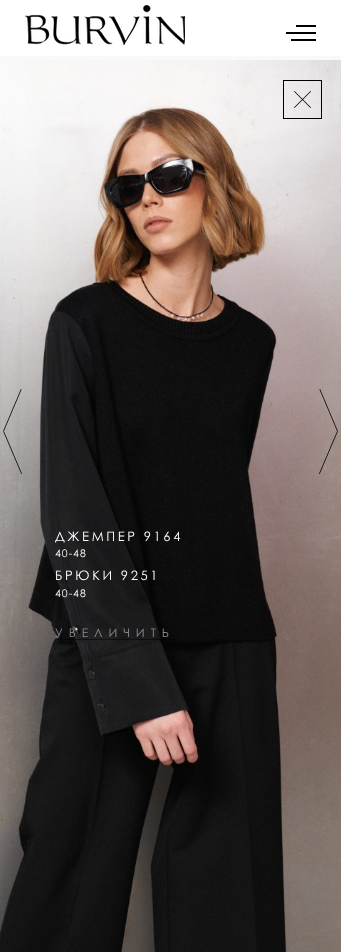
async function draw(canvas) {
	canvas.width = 341;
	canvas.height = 952;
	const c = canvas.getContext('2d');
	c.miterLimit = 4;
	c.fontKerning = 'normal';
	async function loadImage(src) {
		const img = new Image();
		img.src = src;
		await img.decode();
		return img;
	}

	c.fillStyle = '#f9f9f9';
	c.fillRect(0, 0, 341, 952);
	c.fillStyle = '#fff';
	c.fillRect(0, 0, 341, 56);
	c.drawImage(await loadImage('img1.png'), 25, 5, 160, 40);
	c.drawImage(await loadImage('img2.png'), 286, 25, 30, 16);
	c.drawImage(await loadImage('img6.png'), 0, 60, 341, 892);
	c.drawImage(await loadImage('img3.png'), 283, 80, 39, 39);
	c.drawImage(await loadImage('img4.png'), 3, 389, 19, 85);
	c.drawImage(await loadImage('img5.png'), 319, 389, 19, 85);
	c.letterSpacing = '2.6px';
	c.font = '13px Century Gothic';
	c.fillText('ДЖЕМПЕР 9164', 55, 541);
	c.letterSpacing = '1px';
	c.font = '10.5px Century Gothic';
	c.fillText('40-48', 55, 557);
	c.letterSpacing = '2.6px';
	c.font = '13px Century Gothic';
	c.fillText('БРЮКИ 9251', 55, 580);
	c.letterSpacing = '1px';
	c.font = '10.5px Century Gothic';
	c.fillText('40-48', 55, 597);
	c.fillStyle = '#00000080';
	c.fillRect(55, 639, 120, 1);
	c.letterSpacing = '6px';
	c.font = '12px Century Gothic';
	c.fillStyle = '#8d8c8d';
	c.fillText('УВЕЛИЧИТЬ', 55, 637);
}

draw(document.querySelector('canvas'));
